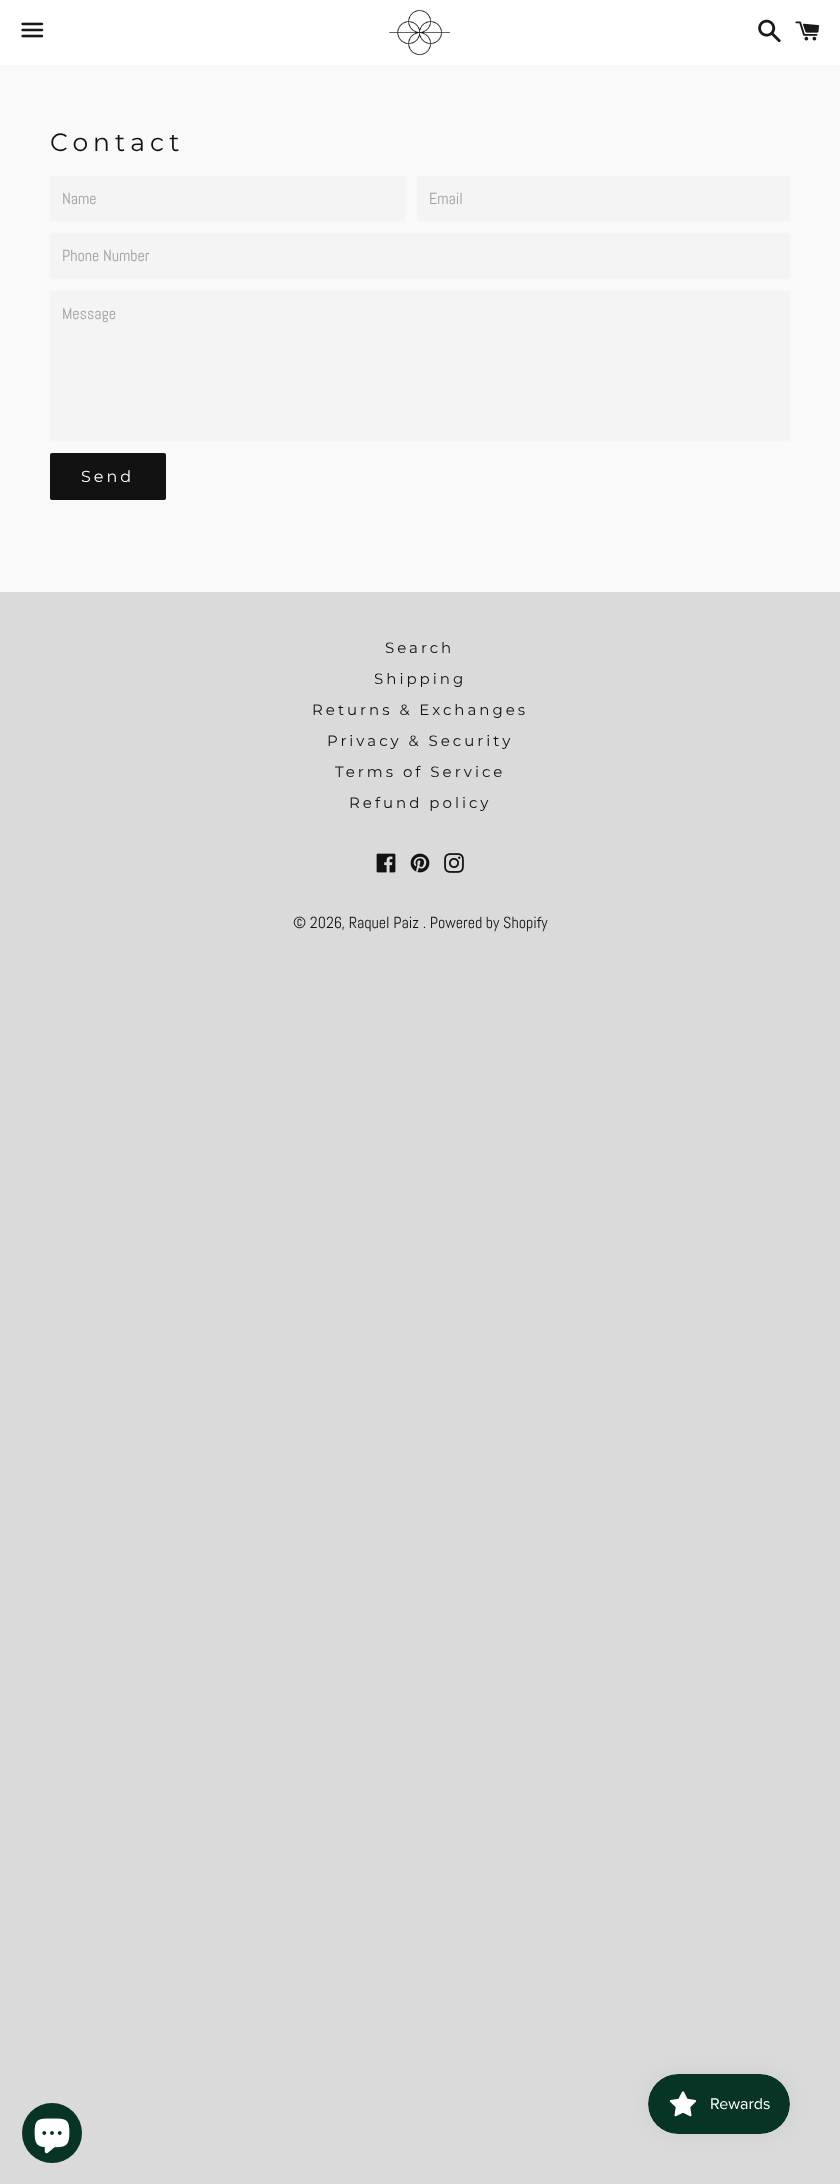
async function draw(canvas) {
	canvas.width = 840;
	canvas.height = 2184;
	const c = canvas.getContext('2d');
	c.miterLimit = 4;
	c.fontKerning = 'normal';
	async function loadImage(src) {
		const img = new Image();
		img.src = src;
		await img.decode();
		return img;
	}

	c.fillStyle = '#dadada';
	c.fillRect(0, 0, 840, 2184);
	c.fillStyle = '#f9f9f9';
	c.fillRect(0, 65, 840, 527);
	c.fillStyle = '#fff';
	c.fillRect(0, 0, 840, 65);
	c.drawImage(await loadImage('img1.png'), 21, 22, 23, 16);
	c.drawImage(await loadImage('img2.png'), 389, 10, 61, 46);
	c.drawImage(await loadImage('img3.png'), 758, 19, 23, 24);
	c.drawImage(await loadImage('img4.png'), 795, 21, 25, 20);
	c.letterSpacing = '5px';
	c.font = '25px Montserrat';
	c.fillStyle = '#131212';
	c.fillText('Contact', 50, 151);
	c.fillStyle = '#f4f4f4';
	c.fillRect(50, 176, 355, 45);
	c.letterSpacing = '0px';
	c.font = '16px Abel';
	c.fillStyle = '#9f9f9f';
	c.fillText('Name', 62, 204);
	c.fillStyle = '#f4f4f4';
	c.fillRect(417, 176, 373, 45);
	c.fillStyle = '#9f9f9f';
	c.fillText('Email', 429, 204);
	c.fillStyle = '#f4f4f4';
	c.fillRect(50, 233, 740, 46);
	c.fillStyle = '#9f9f9f';
	c.fillText('Phone Number', 62, 261);
	c.fillStyle = '#f4f4f4';
	c.fillRect(50, 291, 740, 150);
	c.fillStyle = '#9f9f9f';
	c.fillText('Message', 62, 319);
	c.fillStyle = '#131212';
	c.beginPath();
	c.roundRect(50, 453, 116, 47, 2);
	c.fill();
	c.letterSpacing = '3px';
	c.font = '16px Montserrat';
	c.fillStyle = '#fff';
	c.fillText('Send', 81, 482);
	c.font = '15px Montserrat';
	c.fillStyle = '#131212';
	for (const [text, x, y] of [
		['Search', 385, 653],
		['Shipping', 374, 684],
		['Returns & Exchanges', 312, 715],
		['Privacy & Security', 327, 746],
		['Terms of Service', 335, 777],
		['Refund policy', 349, 808],
	]) {
		c.fillText(text, x, y);
	}
	c.drawImage(await loadImage('img5.png'), 376, 853, 20, 20);
	c.drawImage(await loadImage('img6.png'), 410, 853, 20, 20);
	c.drawImage(await loadImage('img7.png'), 444, 853, 20, 20);
	c.letterSpacing = '0px';
	c.font = '16px Abel';
	c.fillText('© 2026, Raquel Paiz . Powered by Shopify', 293, 928);
	c.fillStyle = '#073424';
	c.beginPath();
	c.arc(52, 2133, 30, 0, 2 * Math.PI);
	c.fill();
	c.drawImage(await loadImage('img8.png'), 34, 2118, 36, 36);
	c.fillStyle = '#0000000d';
	c.filter = 'blur(12.5px)';
	c.beginPath();
	c.roundRect(648, 2074, 142, 60, 30);
	c.fill();
	c.filter = 'none';
	c.drawImage(await loadImage('img9.png'), 648, 2074, 142, 60);
}

draw(document.querySelector('canvas'));
